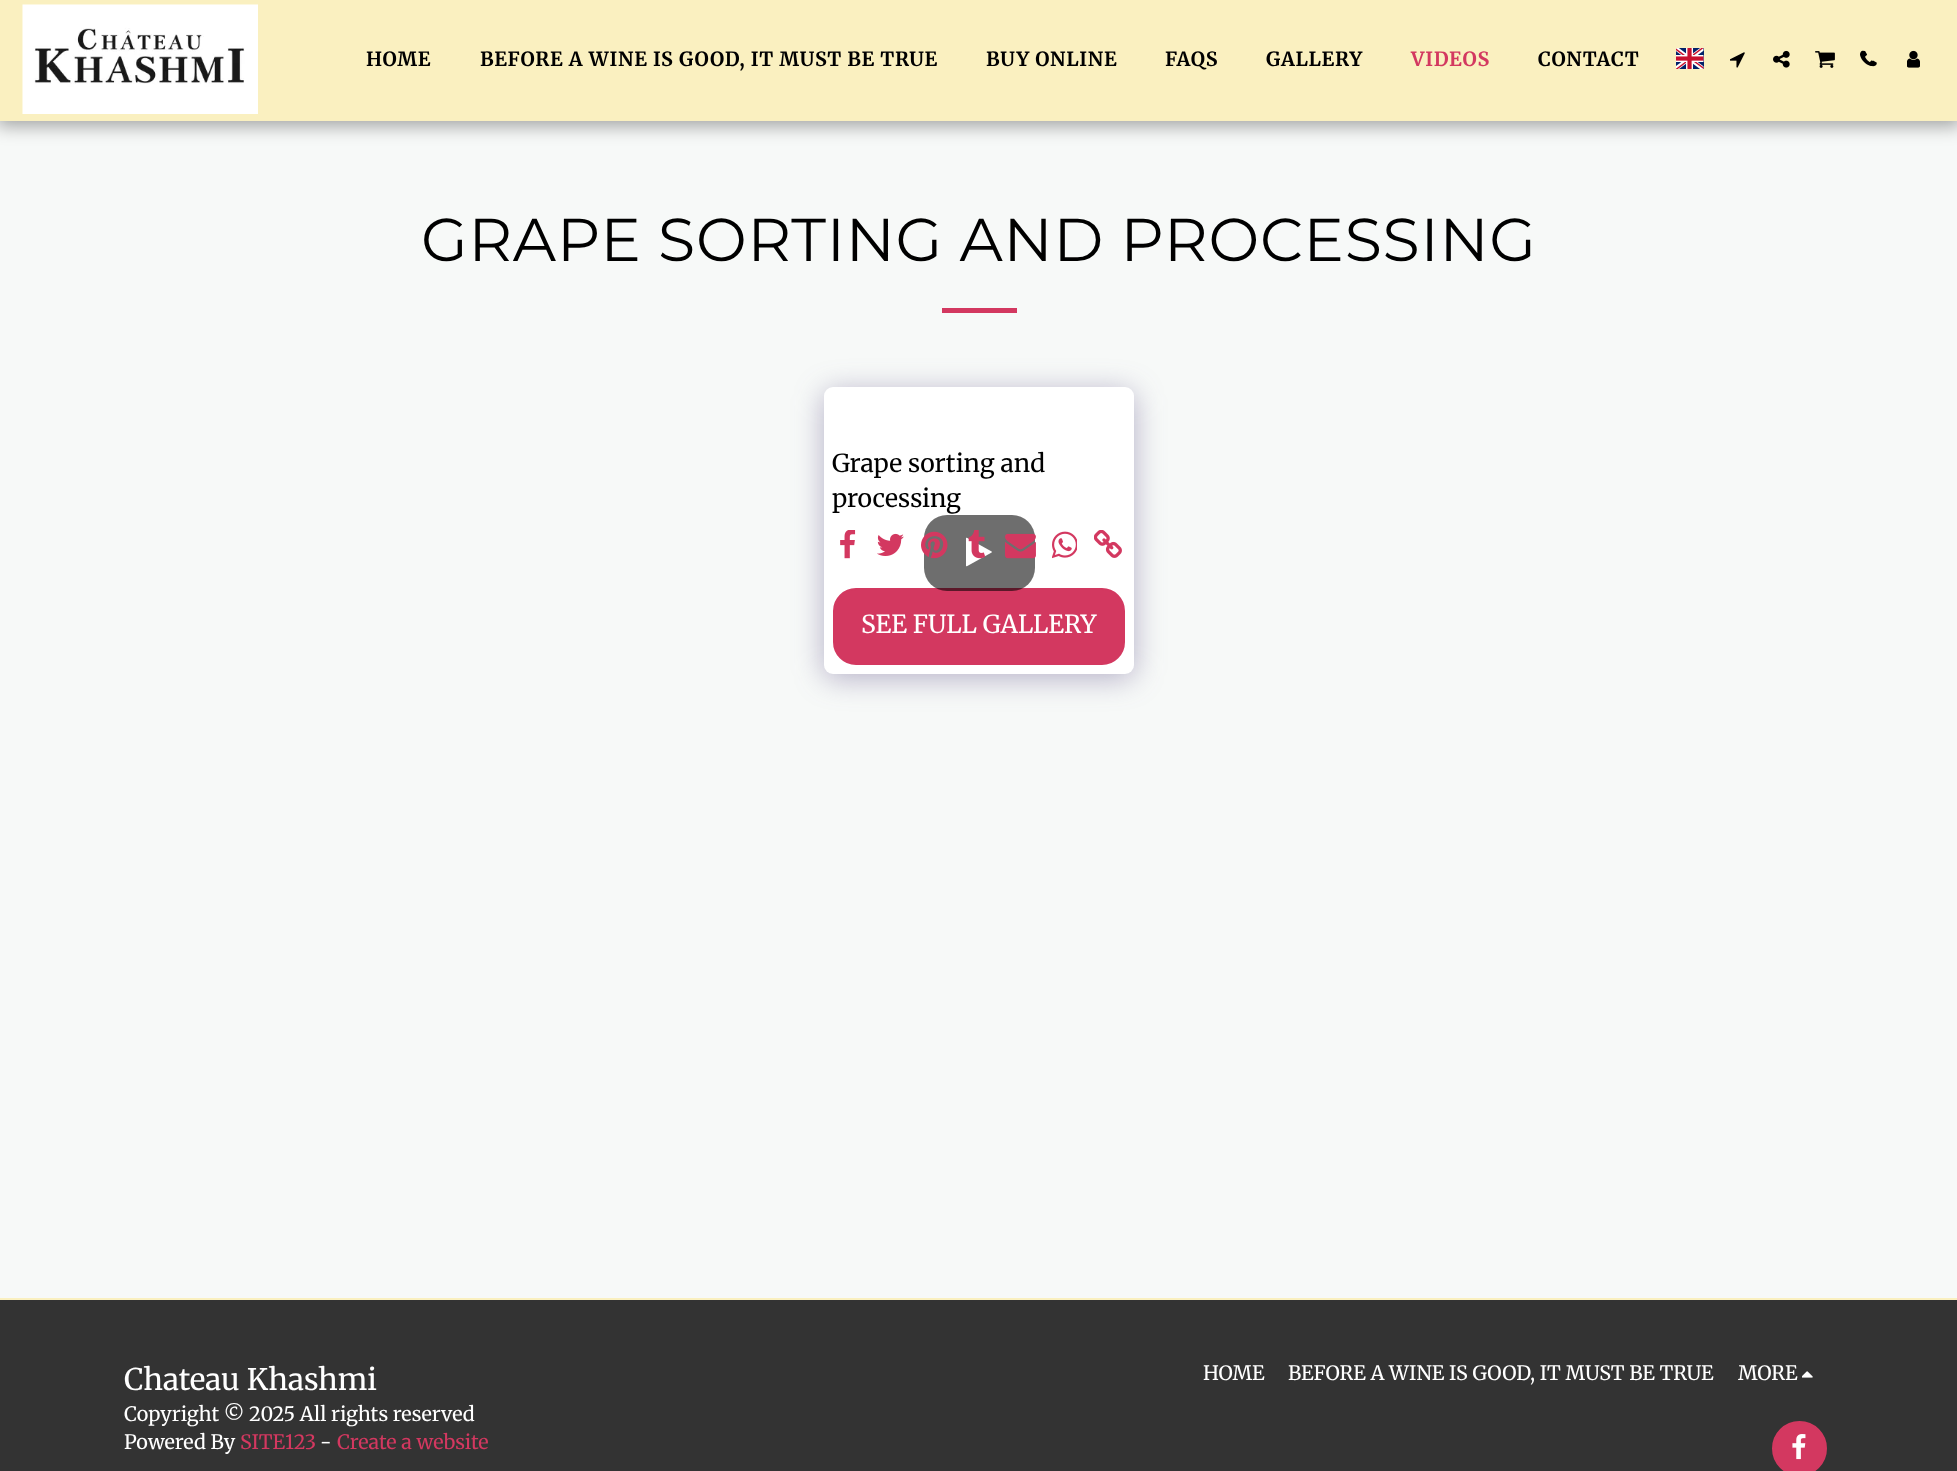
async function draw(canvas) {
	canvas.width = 1957;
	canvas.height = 1471;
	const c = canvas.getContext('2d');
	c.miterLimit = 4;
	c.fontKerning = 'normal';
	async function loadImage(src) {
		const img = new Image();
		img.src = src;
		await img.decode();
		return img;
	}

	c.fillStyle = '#f7f9f8';
	c.fillRect(0, 0, 1957, 1471);
	c.fillStyle = '#00000059';
	c.filter = 'blur(9px)';
	c.beginPath();
	c.rect(-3, 0, 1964, 126);
	c.fill();
	c.filter = 'none';
	c.fillStyle = '#faf0c0';
	c.fillRect(0, 0, 1957, 121);
	c.drawImage(await loadImage('img1.png'), 22, 4, 236, 110);
	c.letterSpacing = '0.75px';
	c.font = 'bold 19.5px Merriweather';
	c.fillStyle = '#000';
	for (const [text, x, y] of [
		['HOME', 366, 66],
		['BEFORE A WINE IS GOOD, IT MUST BE TRUE', 480, 66],
		['BUY ONLINE', 986, 66],
		['FAQS', 1165, 66],
		['GALLERY', 1266, 66],
	]) {
		c.fillText(text, x, y);
	}
	c.fillStyle = '#d33860';
	c.fillText('VIDEOS', 1411, 66);
	c.fillStyle = '#000';
	c.fillText('CONTACT', 1538, 66);
	c.drawImage(await loadImage('img2.png'), 1676, 48, 28, 21);
	c.drawImage(await loadImage('img3.png'), 1730, 52, 15, 16);
	c.drawImage(await loadImage('img4.png'), 1773, 50, 17, 18);
	c.drawImage(await loadImage('img5.png'), 1815, 51, 20, 17);
	c.drawImage(await loadImage('img6.png'), 1863, 50, 14, 17);
	c.drawImage(await loadImage('img7.png'), 1860, 50, 15, 16);
	c.drawImage(await loadImage('img8.png'), 1907, 50, 13, 18);
	c.font = '60.4px Montserrat';
	c.fillText('GRAPE SORTING AND PROCESSING', 421, 261);
	c.fillStyle = '#d33860';
	c.fillRect(942, 308, 75, 5);
	c.fillStyle = '#4d3f7a66';
	c.filter = 'blur(15px)';
	c.beginPath();
	c.roundRect(824, 392, 310, 286, 9);
	c.fill();
	c.filter = 'none';
	c.fillStyle = '#fff';
	c.beginPath();
	c.roundRect(824, 387, 310, 287, 9);
	c.fill();
	c.letterSpacing = '0px';
	c.font = '24.75px Merriweather';
	c.fillStyle = '#000';
	c.fillText('Grape sorting and', 832, 472);
	c.fillText('processing', 832, 507);
	c.drawImage(await loadImage('img9.png'), 840, 530, 16, 29);
	c.drawImage(await loadImage('img10.png'), 877, 533, 27, 23);
	c.fillStyle = '#d33860';
	c.beginPath();
	c.roundRect(834, 589, 290, 75, 22);
	c.fill();
	c.strokeStyle = '#d33860';
	c.lineWidth = 2;
	c.stroke();
	c.fillStyle = '#00000091';
	c.beginPath();
	c.roundRect(924, 515, 111, 76, 23);
	c.fill();
	c.drawImage(await loadImage('img11.png'), 921, 531, 27, 28);
	c.drawImage(await loadImage('img16.png'), 966, 537, 26, 30);
	c.drawImage(await loadImage('img12.png'), 968, 530, 18, 29);
	c.drawImage(await loadImage('img13.png'), 1005, 533, 31, 26);
	c.drawImage(await loadImage('img14.png'), 1052, 531, 25, 28);
	c.drawImage(await loadImage('img15.png'), 1094, 530, 28, 28);
	c.fillStyle = '#fff';
	c.fillText('SEE FULL GALLERY', 861, 633);
	c.fillStyle = '#333';
	c.fillRect(0, 1300, 1957, 171);
	c.fillStyle = '#faf0c0';
	c.fillRect(0, 1298, 1957, 2);
	c.font = '29.75px Merriweather';
	c.fillStyle = '#fff';
	c.fillText('Chateau Khashmi', 124, 1390);
	c.font = '19.8px Merriweather';
	c.fillText('Copyright © 2025 All rights reserved', 124, 1421);
	c.fillText('Powered By', 124, 1449);
	c.fillStyle = '#d33860';
	c.fillText('SITE123', 240, 1449);
	c.fillStyle = '#fff';
	c.fillText('-', 320, 1449);
	c.fillStyle = '#d33860';
	c.fillText('Create a website', 337, 1449);
	c.fillStyle = '#fff';
	for (const [text, x, y] of [
		['HOME', 1203, 1380],
		['BEFORE A WINE IS GOOD, IT MUST BE TRUE', 1288, 1380],
		['MORE', 1738, 1380],
	]) {
		c.fillText(text, x, y);
	}
	c.drawImage(await loadImage('img17.png'), 1802, 1371, 11, 7);
	c.fillStyle = '#d33860';
	c.beginPath();
	c.arc(1799.5, 1448.5, 26.5, 0, 2 * Math.PI);
	c.fill();
	c.stroke();
	c.drawImage(await loadImage('img18.png'), 1792, 1434, 14, 26);
}

draw(document.querySelector('canvas'));
